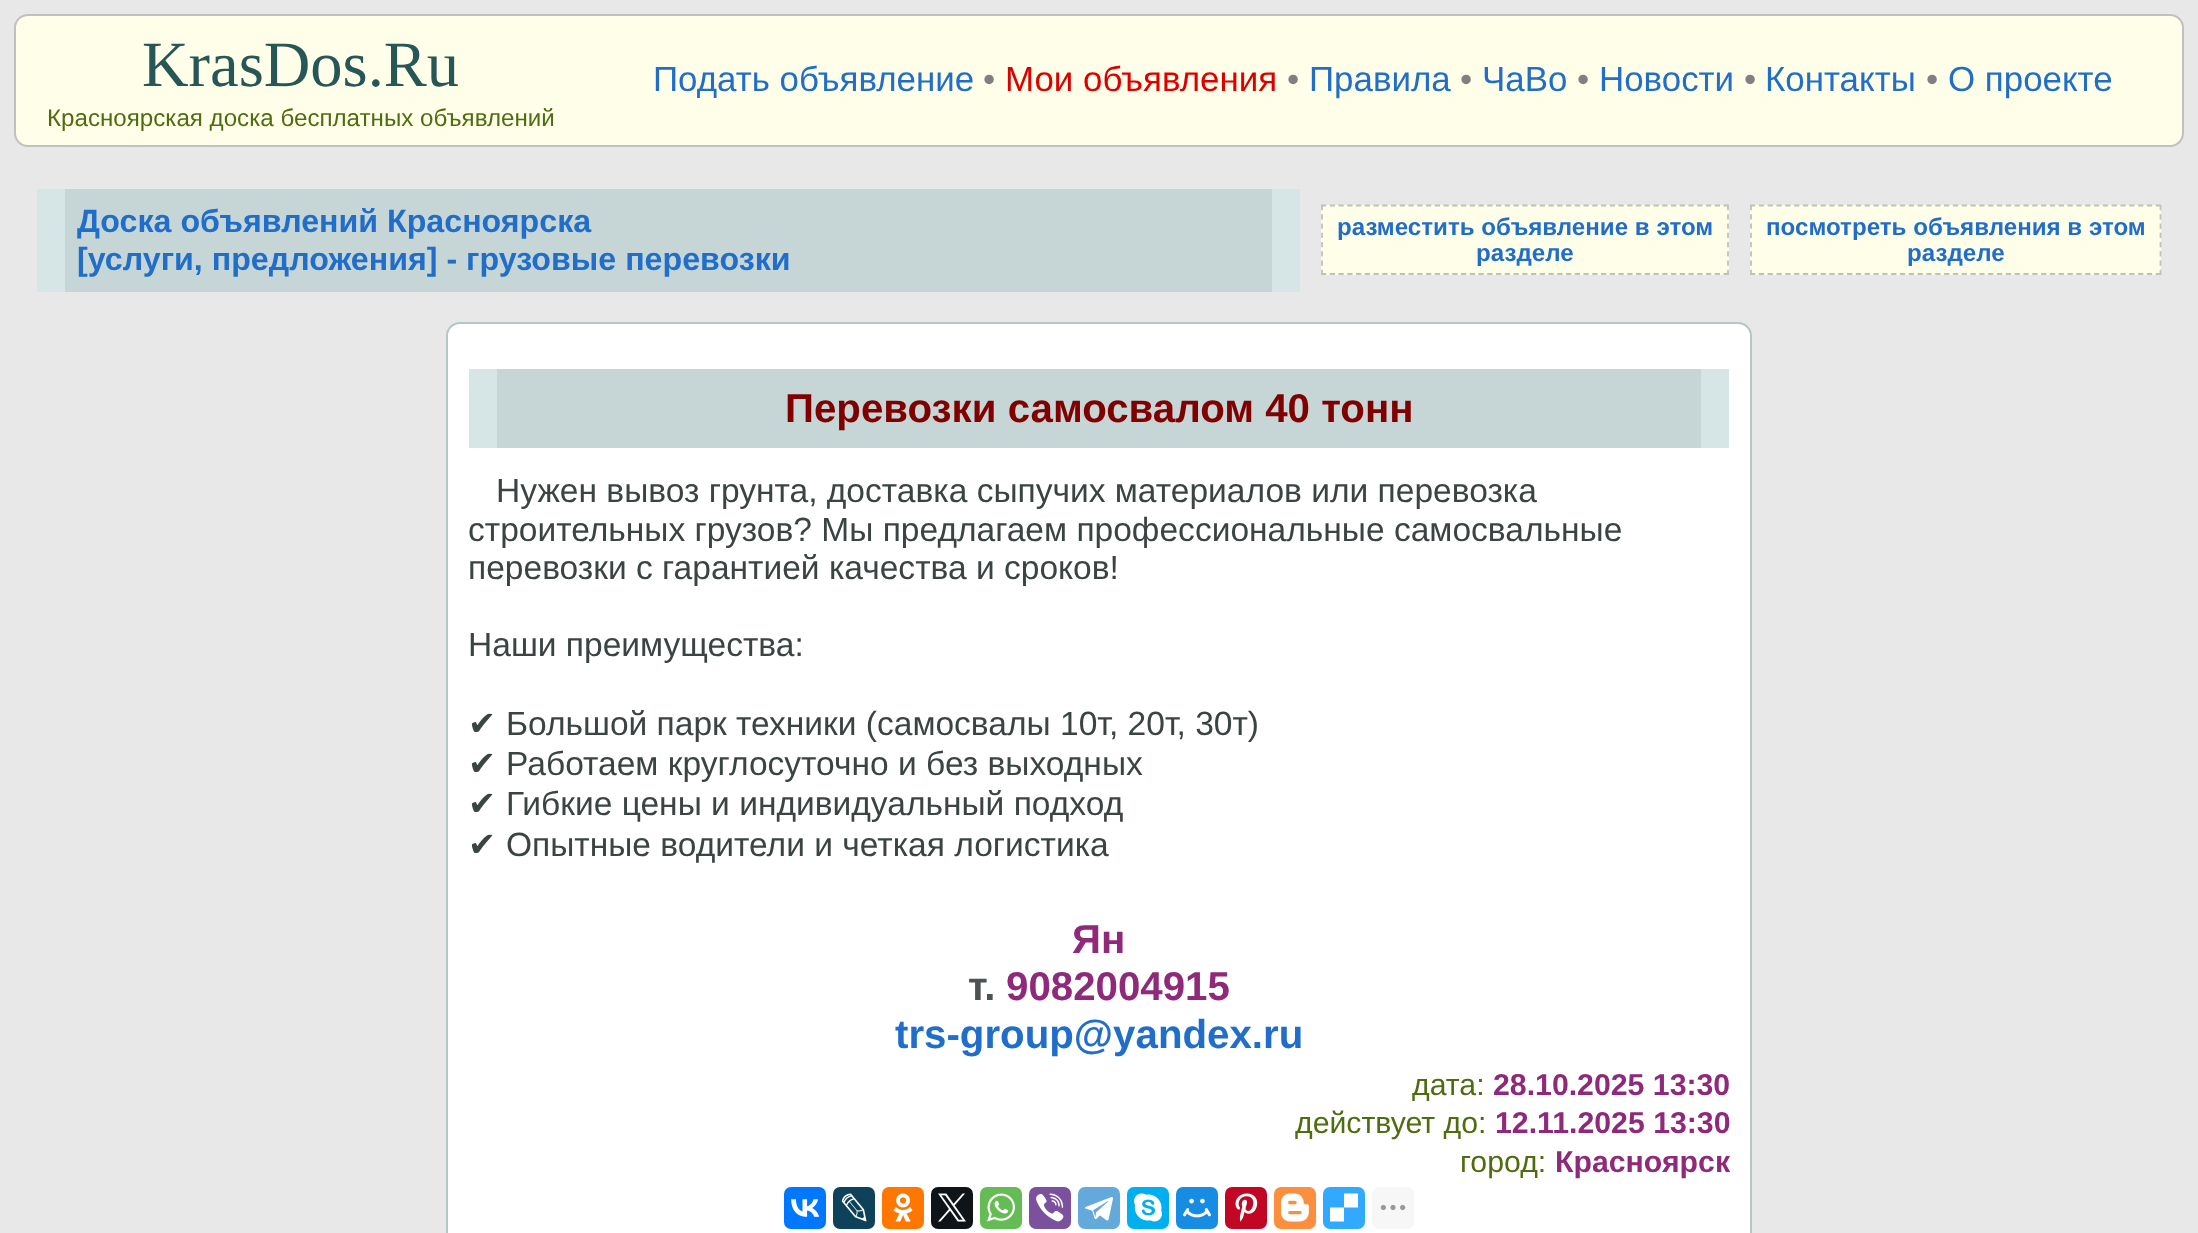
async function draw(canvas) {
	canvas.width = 2198;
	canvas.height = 1233;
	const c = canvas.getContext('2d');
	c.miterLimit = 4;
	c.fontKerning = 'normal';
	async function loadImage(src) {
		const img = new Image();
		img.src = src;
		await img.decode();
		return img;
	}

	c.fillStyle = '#e8e8e8';
	c.fillRect(0, 0, 2198, 1233);
	c.fillStyle = '#ffffe9';
	c.beginPath();
	c.roundRect(15, 15, 2168, 131, 13);
	c.fill();
	c.strokeStyle = '#c0c0c0';
	c.lineWidth = 2;
	c.stroke();
	c.font = '64.5px Liberation Serif';
	c.fillStyle = '#265656';
	c.fillText('KrasDos.Ru', 142, 86);
	c.font = '24.15px Liberation Sans';
	c.fillStyle = '#4f6d10';
	c.fillText('Красноярская доска бесплатных объявлений', 47, 126);
	c.font = '34.9px Liberation Sans';
	c.fillStyle = '#206eca';
	c.fillText('Подать объявление', 653, 91);
	c.fillStyle = '#808080';
	c.fillText('•', 983, 91);
	c.fillStyle = '#d00';
	c.fillText('Мои объявления', 1005, 91);
	c.fillStyle = '#808080';
	c.fillText('•', 1287, 91);
	c.fillStyle = '#206eca';
	c.fillText('Правила', 1309, 91);
	c.fillStyle = '#808080';
	c.fillText('•', 1460, 91);
	c.fillStyle = '#206eca';
	c.fillText('ЧаВо', 1482, 91);
	c.fillStyle = '#808080';
	c.fillText('•', 1577, 91);
	c.fillStyle = '#206eca';
	c.fillText('Новости', 1599, 91);
	c.fillStyle = '#808080';
	c.fillText('•', 1744, 91);
	c.fillStyle = '#206eca';
	c.fillText('Контакты', 1765, 91);
	c.fillStyle = '#808080';
	c.fillText('•', 1926, 91);
	c.fillStyle = '#206eca';
	c.fillText('О проекте', 1948, 91);
	for (const [x, y, w, h, color] of [
		[65, 189, 1207, 103, '#c6d6d6'],
		[1272, 189, 28, 103, '#d6e6e6'],
		[37, 189, 28, 103, '#d6e6e6'],
	]) {
		c.fillStyle = color;
		c.fillRect(x, y, w, h);
	}
	c.font = 'bold 32.2px Liberation Sans';
	c.fillStyle = '#206eca';
	c.fillText('Доска объявлений Красноярска', 77, 232);
	c.fillText('[услуги, предложения] - грузовые перевозки', 77, 270);
	c.fillStyle = '#ffffe9';
	c.fillRect(1321, 205, 408, 70);
	c.beginPath();
	c.moveTo(1321, 205.5);
	c.lineTo(1729, 205.5);
	c.lineWidth = 1.8;
	c.setLineDash([5.25, 3.5]);
	c.stroke();
	c.beginPath();
	c.moveTo(1728, 205);
	c.lineTo(1728, 275);
	c.setLineDash([5.25, 4.01]);
	c.stroke();
	c.beginPath();
	c.moveTo(1321, 274);
	c.lineTo(1729, 274);
	c.setLineDash([5.25, 3.5]);
	c.stroke();
	c.beginPath();
	c.moveTo(1322, 205);
	c.lineTo(1322, 275);
	c.setLineDash([5.25, 4.01]);
	c.stroke();
	c.font = 'bold 24.15px Liberation Sans';
	c.fillStyle = '#206eca';
	c.fillText('разместить объявление в этом', 1337, 235);
	c.fillText('разделе', 1476, 261);
	c.fillStyle = '#ffffe9';
	c.fillRect(1750, 205, 411, 70);
	c.beginPath();
	c.moveTo(1750, 205.5);
	c.lineTo(2161, 205.5);
	c.setLineDash([5.25, 3.57]);
	c.stroke();
	c.beginPath();
	c.moveTo(2160.5, 205);
	c.lineTo(2160.5, 275);
	c.setLineDash([5.25, 4.01]);
	c.stroke();
	c.beginPath();
	c.moveTo(1750, 274);
	c.lineTo(2161, 274);
	c.setLineDash([5.25, 3.57]);
	c.stroke();
	c.beginPath();
	c.moveTo(1751, 205);
	c.lineTo(1751, 275);
	c.setLineDash([5.25, 4.01]);
	c.stroke();
	c.fillStyle = '#206eca';
	c.fillText('посмотреть объявления в этом', 1766, 235);
	c.fillText('разделе', 1907, 261);
	c.fillStyle = '#fff';
	c.beginPath();
	c.roundRect(447, 323, 1304, 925, 13);
	c.fill();
	c.strokeStyle = '#b6c6c6';
	c.lineWidth = 2;
	c.setLineDash([]);
	c.stroke();
	for (const [x, y, w, h, color] of [
		[497, 369, 1204, 79, '#c6d6d6'],
		[1701, 369, 28, 79, '#d6e6e6'],
		[469, 369, 28, 79, '#d6e6e6'],
	]) {
		c.fillStyle = color;
		c.fillRect(x, y, w, h);
	}
	c.font = 'bold 40.25px Liberation Sans';
	c.fillStyle = '#800000';
	c.fillText('Перевозки самосвалом 40 тонн', 785, 422);
	c.font = '33.55px Liberation Sans';
	c.fillStyle = '#3b4343';
	for (const [text, x, y] of [
		['Нужен вывоз грунта, доставка сыпучих материалов или перевозка', 496, 502],
		['строительных грузов? Мы предлагаем профессиональные самосвальные', 468, 541],
		['перевозки с гарантией качества и сроков!', 468, 579],
		['Наши преимущества:', 468, 656],
	]) {
		c.fillText(text, x, y);
	}
	c.font = '33.55px DejaVu Sans';
	c.fillText('✔', 468, 735);
	c.font = '33.55px Liberation Sans';
	c.fillText('Большой парк техники (самосвалы 10т, 20т, 30т)', 506, 735);
	c.font = '33.55px DejaVu Sans';
	c.fillText('✔', 468, 775);
	c.font = '33.55px Liberation Sans';
	c.fillText('Работаем круглосуточно и без выходных', 506, 775);
	c.font = '33.55px DejaVu Sans';
	c.fillText('✔', 468, 815);
	c.font = '33.55px Liberation Sans';
	c.fillText('Гибкие цены и индивидуальный подход', 506, 815);
	c.font = '33.55px DejaVu Sans';
	c.fillText('✔', 468, 856);
	c.font = '33.55px Liberation Sans';
	c.fillText('Опытные водители и четкая логистика', 506, 856);
	c.font = 'bold 40.25px Liberation Sans';
	c.fillStyle = '#8f2979';
	c.fillText('Ян', 1072, 953);
	c.fillStyle = '#4b5353';
	c.fillText('т.', 968, 1000);
	c.fillStyle = '#8f2979';
	c.fillText('9082004915', 1006, 1000);
	c.fillStyle = '#206eca';
	c.fillText('trs-group@yandex.ru', 895, 1048);
	c.font = '30.25px Liberation Sans';
	c.fillStyle = '#4f6d10';
	c.fillText('дата:', 1412, 1095);
	c.font = 'bold 30.25px Liberation Sans';
	c.fillStyle = '#8f2979';
	c.fillText('28.10.2025 13:30', 1493, 1095);
	c.font = '30.25px Liberation Sans';
	c.fillStyle = '#4f6d10';
	c.fillText('действует до:', 1295, 1133);
	c.font = 'bold 30.25px Liberation Sans';
	c.fillStyle = '#8f2979';
	c.fillText('12.11.2025 13:30', 1495, 1133);
	c.font = '30.25px Liberation Sans';
	c.fillStyle = '#4f6d10';
	c.fillText('город:', 1460, 1172);
	c.font = 'bold 30.25px Liberation Sans';
	c.fillStyle = '#8f2979';
	c.fillText('Красноярск', 1555, 1172);
	c.fillStyle = '#07f';
	c.beginPath();
	c.roundRect(784, 1187, 42, 42, 7);
	c.fill();
	c.drawImage(await loadImage('img1.png'), 791, 1199, 29, 18);
	c.fillStyle = '#0d425a';
	c.beginPath();
	c.roundRect(833, 1187, 42, 42, 7);
	c.fill();
	c.drawImage(await loadImage('img2.png'), 841, 1193, 26, 29);
	c.fillStyle = '#f70';
	c.beginPath();
	c.roundRect(882, 1187, 42, 42, 7);
	c.fill();
	c.drawImage(await loadImage('img3.png'), 893, 1193, 20, 29);
	c.fillStyle = '#0f1419';
	c.beginPath();
	c.roundRect(931, 1187, 42, 42, 7);
	c.fill();
	c.drawImage(await loadImage('img4.png'), 938, 1193, 28, 29);
	c.fillStyle = '#65bc54';
	c.beginPath();
	c.roundRect(980, 1187, 42, 42, 7);
	c.fill();
	c.drawImage(await loadImage('img5.png'), 987, 1193, 28, 29);
	c.fillStyle = '#7b519d';
	c.beginPath();
	c.roundRect(1029, 1187, 42, 42, 7);
	c.fill();
	c.drawImage(await loadImage('img6.png'), 1036, 1193, 28, 29);
	c.fillStyle = '#64a9dc';
	c.beginPath();
	c.roundRect(1078, 1187, 42, 42, 7);
	c.fill();
	c.drawImage(await loadImage('img7.png'), 1085, 1197, 28, 24);
	c.fillStyle = '#00aff0';
	c.beginPath();
	c.roundRect(1127, 1187, 42, 42, 7);
	c.fill();
	c.drawImage(await loadImage('img8.png'), 1134, 1193, 28, 29);
	c.fillStyle = '#168de2';
	c.beginPath();
	c.roundRect(1176, 1187, 42, 42, 7);
	c.fill();
	c.drawImage(await loadImage('img9.png'), 1183, 1198, 28, 20);
	c.fillStyle = '#c20724';
	c.beginPath();
	c.roundRect(1225, 1187, 42, 42, 7);
	c.fill();
	c.drawImage(await loadImage('img10.png'), 1235, 1193, 23, 29);
	c.fillStyle = '#fb8f3d';
	c.beginPath();
	c.roundRect(1274, 1187, 42, 42, 7);
	c.fill();
	c.drawImage(await loadImage('img11.png'), 1281, 1193, 28, 29);
	c.fillStyle = '#31a9ff';
	c.beginPath();
	c.roundRect(1323, 1187, 42, 42, 7);
	c.fill();
	c.fillStyle = '#fff';
	c.beginPath();
	c.moveTo(1330, 1207.5);
	c.lineTo(1344, 1207.5);
	c.lineTo(1344, 1221.5);
	c.lineTo(1330, 1221.5);
	c.closePath();
	c.moveTo(1344, 1193.5);
	c.lineTo(1358, 1193.5);
	c.lineTo(1358, 1207.5);
	c.lineTo(1344, 1207.5);
	c.closePath();
	c.fill('evenodd');
	c.fillStyle = '#f7f7f7';
	c.beginPath();
	c.roundRect(1372, 1187, 42, 42, 7);
	c.fill();
	c.drawImage(await loadImage('img12.png'), 1380, 1204, 26, 7);
}

draw(document.querySelector('canvas'));
